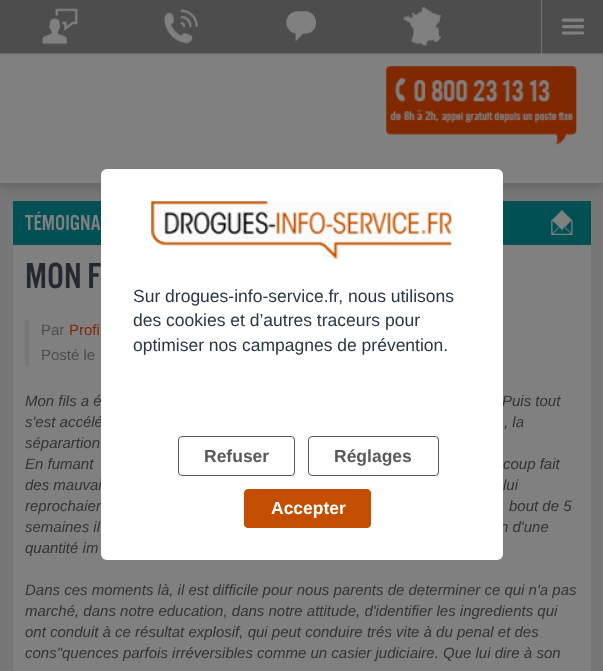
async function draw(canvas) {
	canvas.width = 603;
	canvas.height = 671;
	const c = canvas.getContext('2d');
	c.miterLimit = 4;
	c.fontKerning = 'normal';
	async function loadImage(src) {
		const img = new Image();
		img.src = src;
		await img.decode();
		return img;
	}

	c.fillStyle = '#777';
	c.fillRect(0, 0, 603, 671);
	c.fillStyle = '#00000033';
	c.filter = 'blur(6px)';
	c.beginPath();
	c.rect(0, 58, 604, 128);
	c.fill();
	c.filter = 'none';
	c.fillStyle = '#4d4d4d';
	c.fillRect(0, 0, 603, 53);
	c.fillStyle = '#666';
	c.fillRect(0, 53, 603, 1);
	c.drawImage(await loadImage('img1.png'), 42, 8, 36, 37);
	c.drawImage(await loadImage('img2.png'), 164, 9, 34, 35);
	c.drawImage(await loadImage('img3.png'), 286, 11, 30, 31);
	c.drawImage(await loadImage('img4.png'), 403, 6, 39, 40);
	c.fillStyle = '#717171';
	c.fillRect(541, 0, 1, 54);
	c.font = '32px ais';
	c.fillStyle = '#808080';
	c.fillText('☰', 557, 41);
	c.fillRect(0, 54, 603, 129);
	c.drawImage(await loadImage('img5.png'), 386, 66, 191, 79);
	c.fillRect(13, 245, 578, 426);
	c.fillStyle = '#005054';
	c.fillRect(13, 201, 578, 44);
	c.font = '22.5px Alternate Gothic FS';
	c.fillStyle = '#808080';
	c.fillText('TÉMOIGNA', 25, 230);
	c.drawImage(await loadImage('img6.png'), 551, 209, 22, 26);
	c.font = '37.5px Alternate Gothic FS';
	c.fillStyle = '#242830';
	c.fillText('MON F', 25, 288);
	c.fillStyle = '#777';
	c.fillRect(25, 320, 4, 46);
	c.font = '15px Liberation Sans';
	c.fillStyle = '#4d4d4d';
	c.fillText('Par', 41, 335);
	c.fillStyle = '#802800';
	c.fillText('Profi', 69, 335);
	c.fillStyle = '#4d4d4d';
	c.fillText('Posté le', 41, 360);
	c.font = 'italic 15px Liberation Sans';
	c.fillStyle = '#333';
	for (const [text, x, y] of [
		['Mon fils a é', 25, 406],
		['Puis tout', 502, 406],
		['s\'est accélé', 25, 427],
		[', la', 504, 427],
		['séparartion', 25, 448],
		['En fumant', 25, 469],
		['coup fait', 503, 469],
		['des mauvai', 25, 490],
		['lui', 503, 490],
		['reprochaien', 25, 511],
		['bout de 5', 509, 511],
		['semaines il', 25, 532],
		['n d\'une', 500, 532],
		['quantité im', 25, 553],
		['Dans ces moments là, il est difficile pour nous parents de determiner ce qui n\'a pas', 25, 595],
		['marché, dans notre education, dans notre attitude, d\'identifier les ingredients qui', 25, 616],
		['ont conduit à ce résultat explosif, qui peut conduire trés vite à du penal et des', 25, 637],
		['cons"quences parfois irréversibles comme un casier judiciaire. Que lui dire à son', 25, 658],
	]) {
		c.fillText(text, x, y);
	}
	c.fillStyle = '#fff';
	c.beginPath();
	c.roundRect(101, 169, 402, 391, 6);
	c.fill();
	c.drawImage(await loadImage('img7.png'), 151, 201, 301, 58);
	c.font = '17.5px Liberation Sans';
	c.fillStyle = '#283645';
	for (const [text, x, y] of [
		['Sur drogues-info-service.fr, nous utilisons', 133, 302],
		['des cookies et d’autres traceurs pour', 133, 326],
		['optimiser nos campagnes de prévention.', 133, 351],
	]) {
		c.fillText(text, x, y);
	}
	c.beginPath();
	c.roundRect(178.5, 436.5, 116, 39, 3.5);
	c.strokeStyle = '#5a5a5a';
	c.stroke();
	c.font = 'bold 17.5px Liberation Sans';
	c.fillStyle = '#5a5a5a';
	c.fillText('Refuser', 204, 462);
	c.beginPath();
	c.roundRect(308.5, 436.5, 130, 39, 3.5);
	c.stroke();
	c.fillText('Réglages', 334, 462);
	c.fillStyle = '#c34e00';
	c.beginPath();
	c.roundRect(244.5, 489.5, 126, 38, 3.5);
	c.fill();
	c.strokeStyle = '#c34e00';
	c.stroke();
	c.fillStyle = '#fff';
	c.fillText('Accepter', 271, 514);
}

draw(document.querySelector('canvas'));
